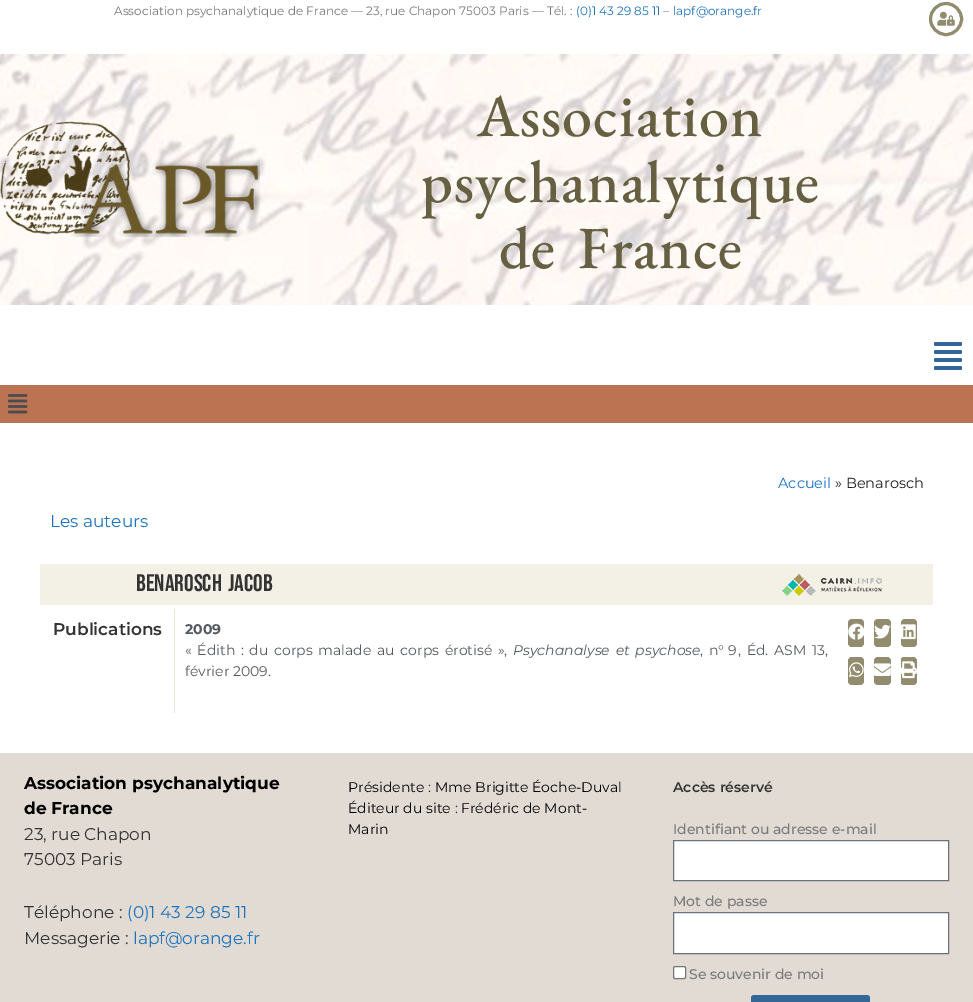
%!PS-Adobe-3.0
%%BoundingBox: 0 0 973 1002
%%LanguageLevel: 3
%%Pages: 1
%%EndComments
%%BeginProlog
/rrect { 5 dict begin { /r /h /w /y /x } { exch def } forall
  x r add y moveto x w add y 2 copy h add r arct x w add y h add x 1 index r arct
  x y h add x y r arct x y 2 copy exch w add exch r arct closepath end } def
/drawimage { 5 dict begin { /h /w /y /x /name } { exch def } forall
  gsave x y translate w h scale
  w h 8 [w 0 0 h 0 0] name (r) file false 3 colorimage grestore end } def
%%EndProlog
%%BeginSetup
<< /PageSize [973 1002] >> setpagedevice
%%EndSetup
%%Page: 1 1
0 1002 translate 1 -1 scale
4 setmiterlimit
1 setgray
0 0 973 1002 rectfill
0.573 0.549 0.435 setrgbcolor
3 setlinewidth
newpath 946 19 15.5 0 360 arc closepath stroke
(images/1.raw) 937 11 18 15 drawimage
(images/2.raw) 0 54 973 251 drawimage
(images/3.raw) 0 121 260 116 drawimage
(images/4.raw) 934 342 28 28 drawimage
0.733 0.451 0.318 setrgbcolor
0 385 973 38 rectfill
(images/5.raw) 8 394 20 20 drawimage
0.953 0.945 0.902 setrgbcolor
40 564 893 41 rectfill
(images/6.raw) 782 574 100 22 drawimage
0.91 0.902 0.863 setrgbcolor
174 609 1 104 rectfill
0.573 0.549 0.435 setrgbcolor
848 619 16 28 4 rrect fill
(images/7.raw) 848 623 16 17 drawimage
874 619 17 28 4 rrect fill
(images/8.raw) 874 624 17 15 drawimage
901 619 16 28 4 rrect fill
(images/9.raw) 901 624 15 16 drawimage
848 657 16 28 4 rrect fill
(images/10.raw) 849 662 15 15 drawimage
874 657 17 28 4 rrect fill
(images/11.raw) 874 663 17 13 drawimage
gsave
901 657 16 28 4 rrect clip newpath
900 657 17 28 4 rrect fill
grestore
(images/12.raw) 901 661 16 18 drawimage
0.882 0.859 0.827 setrgbcolor
0 753 973 249 rectfill
1 setgray
newpath 673.5 840.5 moveto 948.5 840.5 lineto 948.5 880.5 lineto 673.5 880.5 lineto closepath gsave fill grestore
0.412 0.447 0.49 setrgbcolor
1 setlinewidth
stroke
1 setgray
newpath 673.5 912.5 moveto 948.5 912.5 lineto 948.5 953.5 lineto 673.5 953.5 lineto closepath gsave fill grestore
0.412 0.447 0.49 setrgbcolor
stroke
1 setgray
673.5 966.5 12 12 1.5 rrect gsave fill grestore
0.463 setgray
stroke
0.2 0.4 0.6 setrgbcolor
751 995 119 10 3 rrect fill
/Montserrat-Regular [12 0 0 -12 0 0] selectfont
0.478 setgray
114 15 moveto (Association psychanalytique de France — 23, rue Chapon 75003 Paris — Tél. :) show
0.118 0.451 0.745 setrgbcolor
576 15 moveto (\(0\)1 43 29 85 11) show
0.478 setgray
663 15 moveto (–) show
0.118 0.451 0.745 setrgbcolor
673 15 moveto (lapf@orange.fr) show
/EBGaramond-Medium [60 0 0 -60 0 0] selectfont
0.4 0.373 0.255 setrgbcolor
477 136 moveto 1 0 (Association) ashow
421 202 moveto 1 0 (psychanalytique) ashow
499 268 moveto 8 0 32 1 0 (de France) awidthshow
/Montserrat-Regular [14.5 0 0 -14.5 0 0] selectfont
0.118 0.451 0.745 setrgbcolor
778 488 moveto (Accueil) show
0.133 setgray
835 488 moveto (» Benarosch) show
/Montserrat-Regular [17 0 0 -17 0 0] selectfont
0.118 0.451 0.745 setrgbcolor
50 527 moveto (Les auteurs) show
/BebasNeue-Regular [24 0 0 -24 0 0] selectfont
0.2 setgray
136 591 moveto (Benarosch) show
228 591 moveto (Jacob) show
/Montserrat-SemiBold [17 0 0 -17 0 0] selectfont
53 635 moveto (Publications) show
/Montserrat-Bold [14 0 0 -14 0 0] selectfont
0.329 0.349 0.373 setrgbcolor
185 634 moveto (2009) show
/Montserrat-Regular [14 0 0 -14 0 0] selectfont
185 655 moveto 2 0 32 (« Édith : du corps malade au corps érotisé »,) widthshow
/Montserrat-Italic [14 0 0 -14 0 0] selectfont
513 655 moveto 2 0 32 (Psychanalyse et psychose) widthshow
/Montserrat-Regular [14 0 0 -14 0 0] selectfont
700 655 moveto (,) show
709 655 moveto (n° 9) show
738 655 moveto 2 0 32 (, Éd. ASM 13,) widthshow
185 676 moveto (février 2009.) show
/Montserrat-Bold [17 0 0 -17 0 0] selectfont
0 setgray
24 789 moveto (Association psychanalytique) show
24 814 moveto (de France) show
/Montserrat-Regular [17 0 0 -17 0 0] selectfont
0.2 setgray
24 840 moveto (23, rue Chapon) show
24 865 moveto (75003 Paris) show
24 918 moveto (Téléphone :) show
0.118 0.451 0.745 setrgbcolor
127 918 moveto (\(0\)1 43 29 85 11) show
0.2 setgray
24 944 moveto (Messagerie :) show
0.118 0.451 0.745 setrgbcolor
133 944 moveto (lapf@orange.fr) show
/Montserrat-Regular [14 0 0 -14 0 0] selectfont
0 setgray
348 792 moveto (Présidente) show
0.2 setgray
428 792 moveto (:) show
0 setgray
435 792 moveto (Mme Brigitte Éoche-Duval) show
348 813 moveto (Éditeur du site) show
0.2 setgray
455 813 moveto (:) show
0 setgray
461 813 moveto (Frédéric de Mont-) show
348 834 moveto (Marin) show
/Montserrat-SemiBold [14 0 0 -14 0 0] selectfont
0.2 setgray
673 792 moveto (Accès réservé) show
/Montserrat-Medium [14 0 0 -14 0 0] selectfont
0.478 setgray
673 834 moveto (Identifiant ou adresse e-mail) show
673 906 moveto (Mot de passe) show
689 979 moveto (Se souvenir de moi) show
showpage
%%EOF
